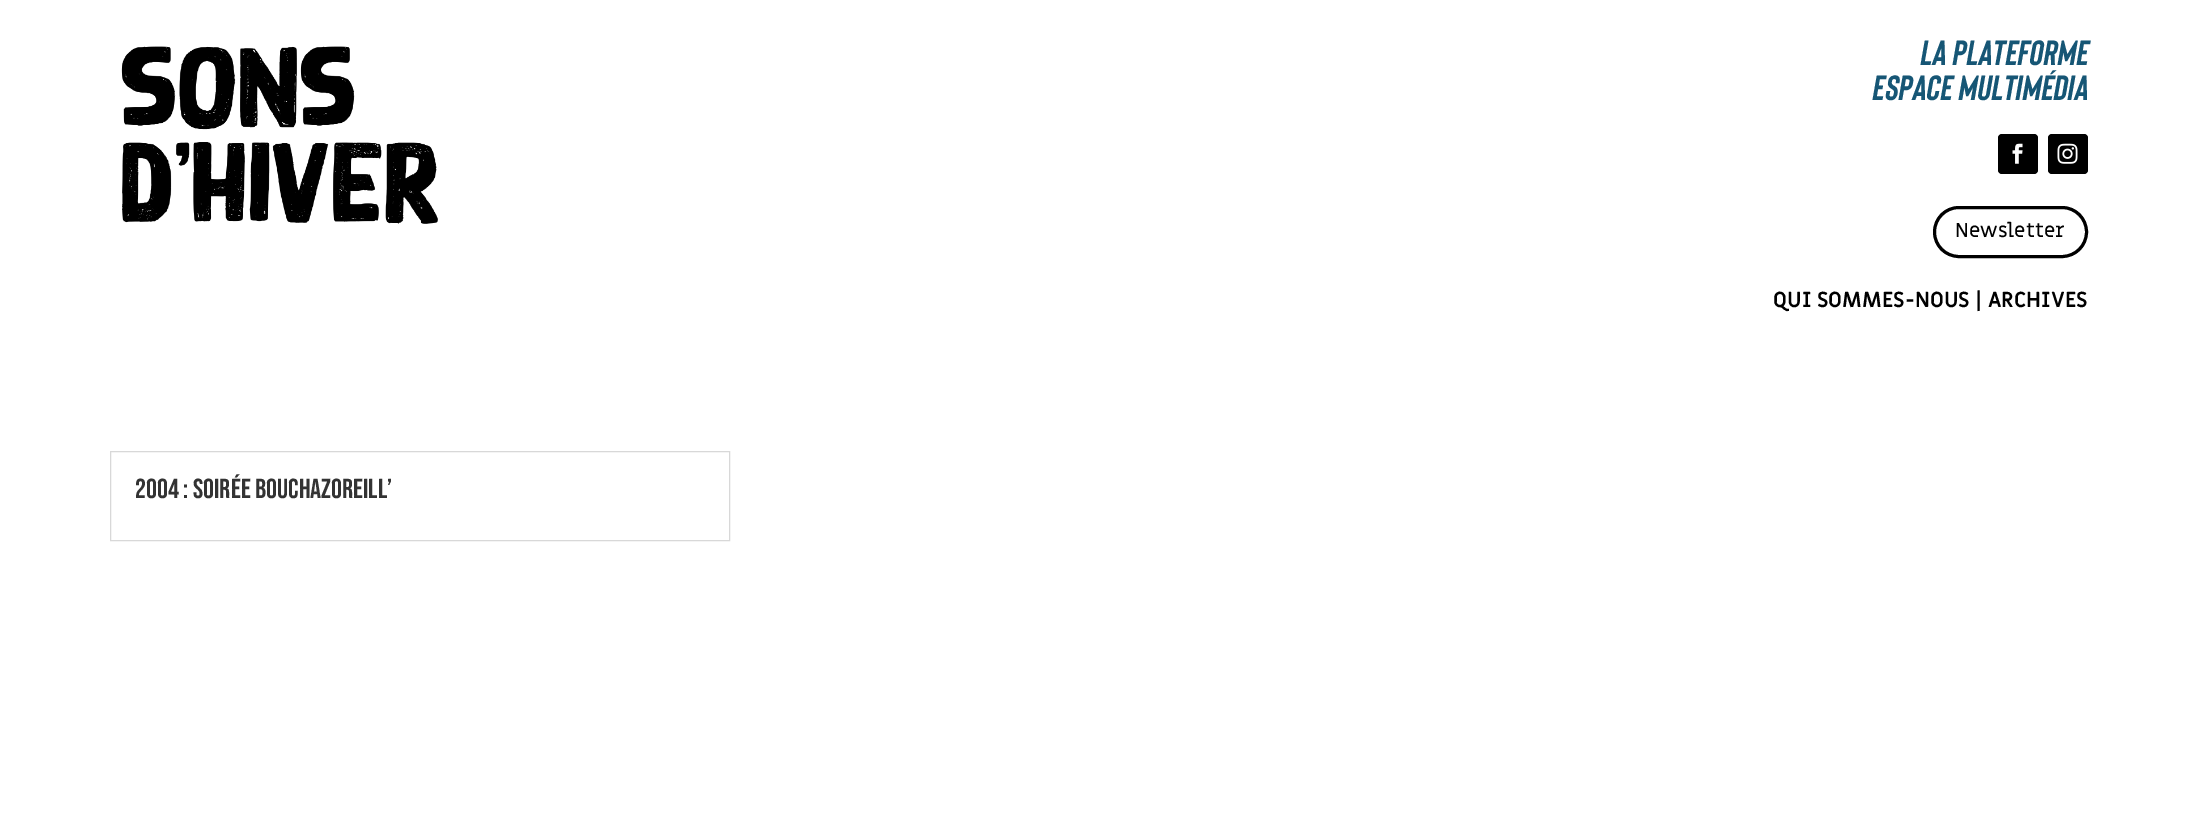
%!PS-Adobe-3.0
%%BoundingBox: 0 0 2197 837
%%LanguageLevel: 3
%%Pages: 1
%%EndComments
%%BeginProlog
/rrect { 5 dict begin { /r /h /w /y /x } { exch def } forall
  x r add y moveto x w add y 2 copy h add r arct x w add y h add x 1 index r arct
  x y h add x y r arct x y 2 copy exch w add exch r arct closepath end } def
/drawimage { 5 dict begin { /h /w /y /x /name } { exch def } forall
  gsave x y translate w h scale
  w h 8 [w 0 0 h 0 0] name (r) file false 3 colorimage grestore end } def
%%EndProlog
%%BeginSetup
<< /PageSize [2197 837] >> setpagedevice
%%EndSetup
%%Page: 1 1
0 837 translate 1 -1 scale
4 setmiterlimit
1 setgray
0 0 2197 837 rectfill
(images/1.raw) 121 46 317 178 drawimage
0 setgray
1998 134 40 40 4 rrect fill
(images/2.raw) 2012 143 11 21 drawimage
2048 134 40 40 4 rrect fill
(images/3.raw) 2057 143 21 21 drawimage
3 setlinewidth
1934.5 207.5 152 49 24.5 rrect stroke
0.847 setgray
1 setlinewidth
110.5 451.5 619 89 rectstroke
/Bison-BoldItalic [35 0 0 -35 0 0] selectfont
0.086 0.337 0.459 setrgbcolor
1919 65 moveto (La Plateforme) show
1871 100 moveto (espace multimédia) show
/MiriamLibre-Medium [20 0 0 -20 0 0] selectfont
0 setgray
1955 237 moveto (Newsletter) show
/MiriamLibre-Bold [21.25 0 0 -21.25 0 0] selectfont
1773 307 moveto (QUI SOMMES-NOUS | ARCHIVES) show
/BebasNeue-Regular [27.5 0 0 -27.5 0 0] selectfont
0.2 setgray
135 498 moveto (2004 : SOIRÉE BOUCHAZOREILL’) show
showpage
%%EOF
